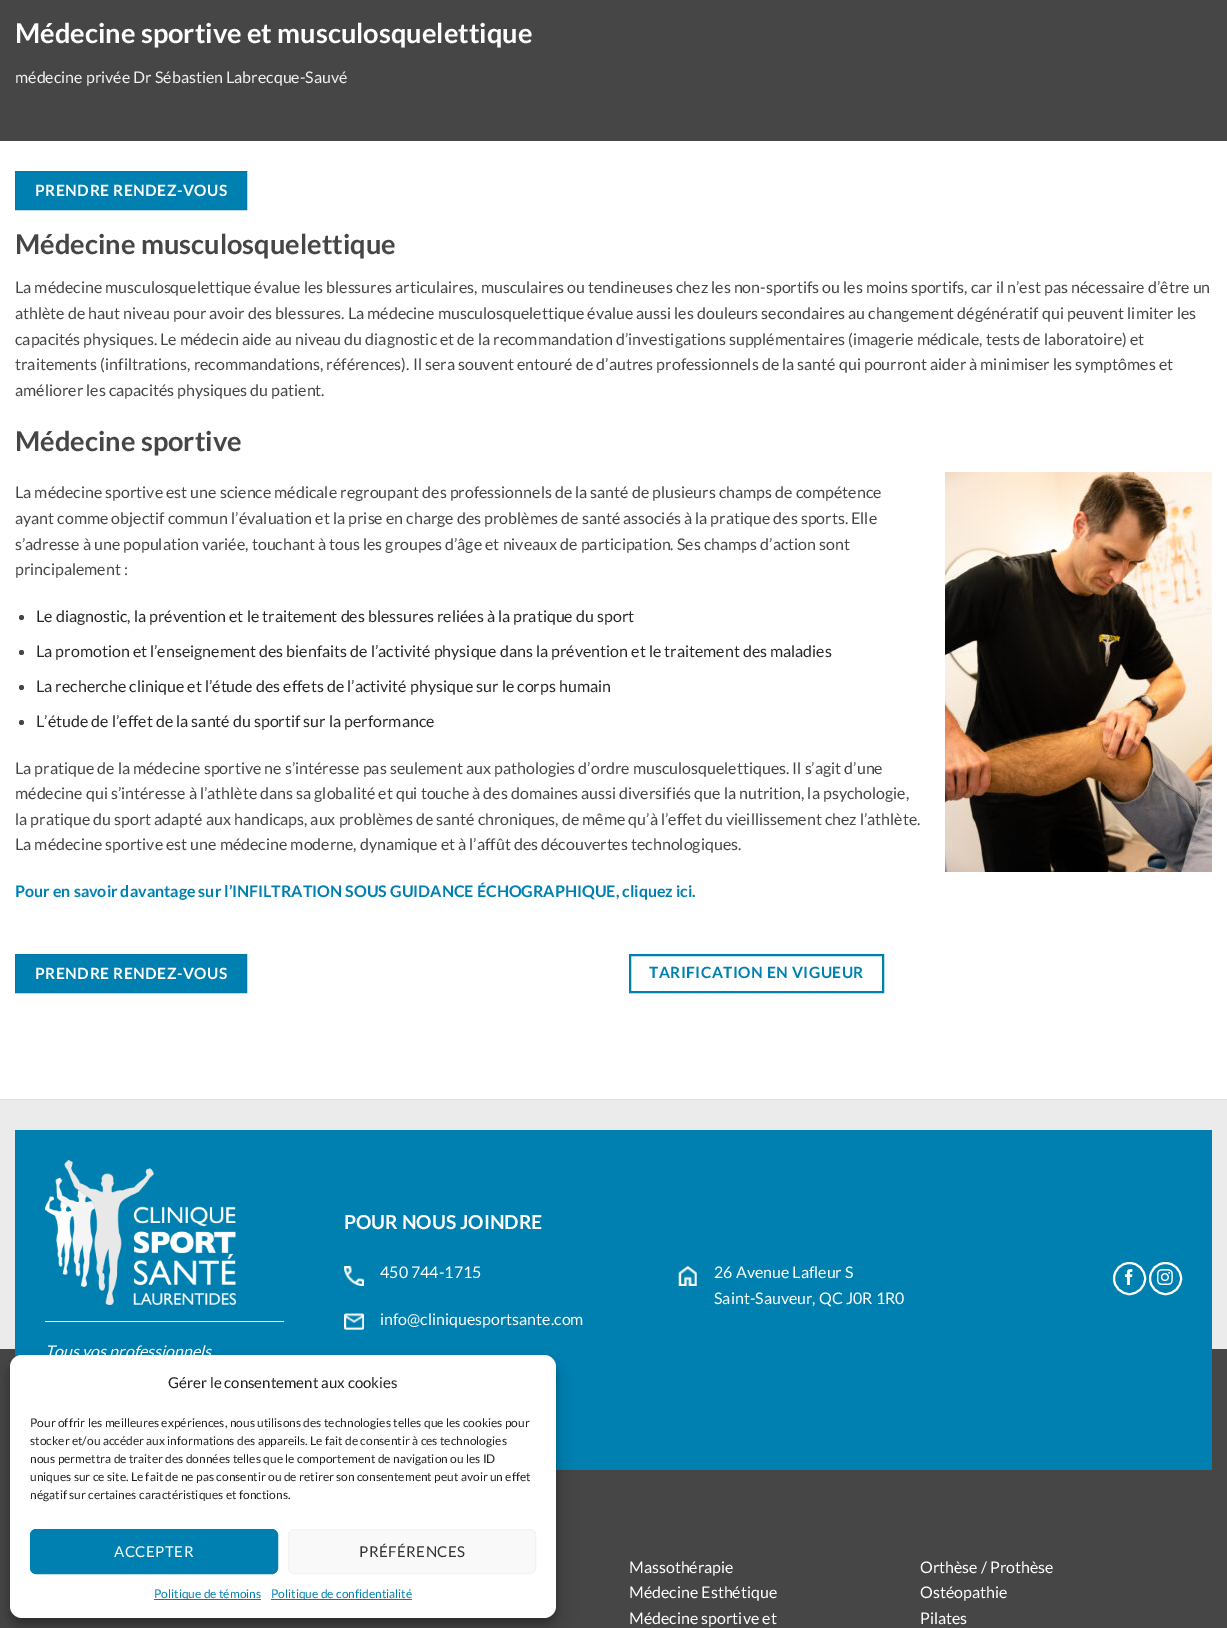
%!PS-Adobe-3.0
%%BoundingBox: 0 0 1227 1628
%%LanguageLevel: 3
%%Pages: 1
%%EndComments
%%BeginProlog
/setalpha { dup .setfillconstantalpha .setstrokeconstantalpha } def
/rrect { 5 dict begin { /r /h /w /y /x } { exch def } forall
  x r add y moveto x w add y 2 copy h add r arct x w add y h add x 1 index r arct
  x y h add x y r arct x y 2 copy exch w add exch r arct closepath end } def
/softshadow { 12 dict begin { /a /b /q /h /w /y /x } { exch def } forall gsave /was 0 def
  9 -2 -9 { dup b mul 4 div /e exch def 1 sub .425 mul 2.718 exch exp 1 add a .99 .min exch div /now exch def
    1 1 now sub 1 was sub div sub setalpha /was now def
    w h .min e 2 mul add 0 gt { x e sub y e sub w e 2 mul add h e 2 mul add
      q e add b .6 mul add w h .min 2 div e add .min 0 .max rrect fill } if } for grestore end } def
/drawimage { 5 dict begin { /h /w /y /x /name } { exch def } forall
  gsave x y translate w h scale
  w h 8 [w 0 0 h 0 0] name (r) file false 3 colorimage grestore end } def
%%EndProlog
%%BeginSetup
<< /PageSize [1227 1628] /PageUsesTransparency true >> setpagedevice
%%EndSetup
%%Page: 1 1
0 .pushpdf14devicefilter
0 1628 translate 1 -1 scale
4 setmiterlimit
1 setgray
0 0 1227 1628 rectfill
0.275 setgray
0 0 1227 141 rectfill
0 0.502 0.694 setrgbcolor
newpath 15.5 171.5 moveto 246.5 171.5 lineto 246.5 209.5 lineto 15.5 209.5 lineto closepath gsave fill grestore
0 0.478 0.659 setrgbcolor
stroke
(images/1.raw) 945 472 267 400 drawimage
0.275 setgray
newpath 21.5 617.5 2.5 0 360 arc closepath fill
newpath 21.5 652.5 2.5 0 360 arc closepath fill
newpath 21.5 687.5 2.5 0 360 arc closepath fill
newpath 21.5 722.5 2.5 0 360 arc closepath fill
0 0.502 0.694 setrgbcolor
newpath 15.5 954.5 moveto 246.5 954.5 lineto 246.5 992.5 lineto 15.5 992.5 lineto closepath gsave fill grestore
0 0.478 0.659 setrgbcolor
stroke
0 0.502 0.694 setrgbcolor
2 setlinewidth
630 955 253 37 rectstroke
0.275 setgray
0 1349 1227 279 rectfill
0.922 setgray
0 1100 1227 249 rectfill
0.875 setgray
0 1099 1227 1 rectfill
0 0.502 0.694 setrgbcolor
15 1130 1197 340 rectfill
(images/2.raw) 344 1266 20 20 drawimage
(images/3.raw) 344 1313 20 17 drawimage
(images/4.raw) 678 1266 19 20 drawimage
1 setgray
newpath 1129.5 1278.5 15.5 0 360 arc closepath stroke
(images/5.raw) 1124 1269 9 16 drawimage
newpath 1165.5 1278.5 15.5 0 360 arc closepath stroke
(images/6.raw) 1157 1269 16 16 drawimage
(images/7.raw) 45 1160 191 145 drawimage
45 1321 239 1 rectfill
0 setgray
10 1361 546 263 12 3 0.23 softshadow
10 1365 546 263 12 10 0.19 softshadow
1 setgray
10 1355 546 263 12 rrect fill
0 0.502 0.694 setrgbcolor
30.5 1529.5 247 44 5.5 rrect gsave fill grestore
1 setlinewidth
stroke
0.976 setgray
288.5 1529.5 247 44 5.5 rrect gsave fill grestore
0.949 setgray
stroke
0 0.502 0.694 setrgbcolor
154 1599 107 1 rectfill
271 1599 141 1 rectfill
/Lato-Bold [27.25 0 0 -27.25 0 0] selectfont
1 setgray
15 43 moveto (Médecine sportive et musculosquelettique) show
/Lato-Regular [16 0 0 -16 0 0] selectfont
0.945 setgray
15 83 moveto (médecine privée Dr Sébastien Labrecque-Sauvé) show
/Lato-Bold [15.5 0 0 -15.5 0 0] selectfont
1 setgray
35 196 moveto 0.5 0 (PRENDRE RENDEZ-VOUS) ashow
/Lato-Bold [27.25 0 0 -27.25 0 0] selectfont
0.275 setgray
15 254 moveto (Médecine musculosquelettique) show
/Lato-Regular [16 0 0 -16 0 0] selectfont
15 293 moveto (La médecine musculosquelettique évalue les blessures articulaires, musculaires ou tendineuses chez les non-sportifs ou les moins sportifs, car il n’est pas nécessaire d’être un) show
15 319 moveto (athlète de haut niveau pour avoir des blessures. La médecine musculosquelettique évalue aussi les douleurs secondaires au changement dégénératif qui peuvent limiter les) show
15 345 moveto (capacités physiques. Le médecin aide au niveau du diagnostic et de la recommandation d’investigations supplémentaires \(imagerie médicale, tests de laboratoire\) et) show
15 370 moveto (traitements \(infiltrations, recommandations, références\). Il sera souvent entouré de d’autres professionnels de la santé qui pourront aider à minimiser les symptômes et) show
15 396 moveto (améliorer les capacités physiques du patient.) show
/Lato-Bold [27.25 0 0 -27.25 0 0] selectfont
15 451 moveto (Médecine sportive) show
/Lato-Regular [16 0 0 -16 0 0] selectfont
15 498 moveto (La médecine sportive est une science médicale regroupant des professionnels de la santé de plusieurs champs de compétence) show
15 524 moveto (ayant comme objectif commun l’évaluation et la prise en charge des problèmes de santé associés à la pratique des sports. Elle) show
15 550 moveto (s’adresse à une population variée, touchant à tous les groupes d’âge et niveaux de participation. Ses champs d’action sont) show
15 575 moveto (principalement :) show
0.157 setgray
36 622 moveto (Le diagnostic, la prévention et le traitement des blessures reliées à la pratique du sport) show
36 657 moveto (La promotion et l’enseignement des bienfaits de l’activité physique dans la prévention et le traitement des maladies) show
36 692 moveto (La recherche clinique et l’étude des effets de l’activité physique sur le corps humain) show
36 727 moveto (L’étude de l’effet de la santé du sportif sur la performance) show
0.275 setgray
15 774 moveto (La pratique de la médecine sportive ne s’intéresse pas seulement aux pathologies d’ordre musculosquelettiques. Il s’agit d’une) show
15 799 moveto (médecine qui s’intéresse à l’athlète dans sa globalité et qui touche à des domaines aussi diversifiés que la nutrition, la psychologie,) show
15 825 moveto (la pratique du sport adapté aux handicaps, aux problèmes de santé chroniques, de même qu’à l’effet du vieillissement chez l’athlète.) show
15 850 moveto (La médecine sportive est une médecine moderne, dynamique et à l’affût des découvertes technologiques.) show
/Lato-Bold [16 0 0 -16 0 0] selectfont
0 0.502 0.694 setrgbcolor
15 897 moveto (Pour en savoir davantage sur l’INFILTRATION SOUS GUIDANCE ÉCHOGRAPHIQUE, cliquez ici.) show
/Lato-Bold [15.5 0 0 -15.5 0 0] selectfont
1 setgray
35 979 moveto 0.5 0 (PRENDRE RENDEZ-VOUS) ashow
0 0.502 0.694 setrgbcolor
649 978 moveto 0.5 0 (TARIFICATION EN VIGUEUR) ashow
/Lato-Bold [19.25 0 0 -19.25 0 0] selectfont
1 setgray
344 1229 moveto (POUR NOUS JOINDRE) show
/Lato-Regular [16 0 0 -16 0 0] selectfont
380 1278 moveto (450 744-1715) show
380 1325 moveto (info@cliniquesportsante.com) show
714 1278 moveto (26 Avenue Lafleur S) show
714 1304 moveto (Saint-Sauveur, QC J0R 1R0) show
/Lato-Italic [16 0 0 -16 0 0] selectfont
45 1357 moveto (Tous vos professionnels) show
/Lato-Regular [16 0 0 -16 0 0] selectfont
629 1573 moveto (Massothérapie) show
629 1598 moveto (Médecine Esthétique) show
629 1624 moveto (Médecine sportive et) show
920 1573 moveto (Orthèse / Prothèse) show
920 1598 moveto (Ostéopathie) show
920 1624 moveto (Pilates) show
/Lato-Regular [15 0 0 -15 0 0] selectfont
0.133 setgray
168 1388 moveto (Gérer le consentement aux cookies) show
/Lato-Regular [12 0 0 -12 0 0] selectfont
30 1427 moveto (Pour offrir les meilleures expériences, nous utilisons des technologies telles que les cookies pour) show
30 1445 moveto (stocker et/ou accéder aux informations des appareils. Le fait de consentir à ces technologies) show
30 1463 moveto (nous permettra de traiter des données telles que le comportement de navigation ou les ID) show
30 1481 moveto (uniques sur ce site. Le fait de ne pas consentir ou de retirer son consentement peut avoir un effet) show
30 1499 moveto (négatif sur certaines caractéristiques et fonctions.) show
/Lato-Regular [15 0 0 -15 0 0] selectfont
1 setgray
114 1557 moveto 0.5 0 (ACCEPTER) ashow
0.2 setgray
359 1557 moveto 0.5 0 (PRÉFÉRENCES) ashow
/Lato-Regular [12 0 0 -12 0 0] selectfont
0 0.502 0.694 setrgbcolor
154 1598 moveto (Politique de témoins) show
271 1598 moveto (Politique de confidentialité) show
.poppdf14devicefilter showpage
%%EOF
